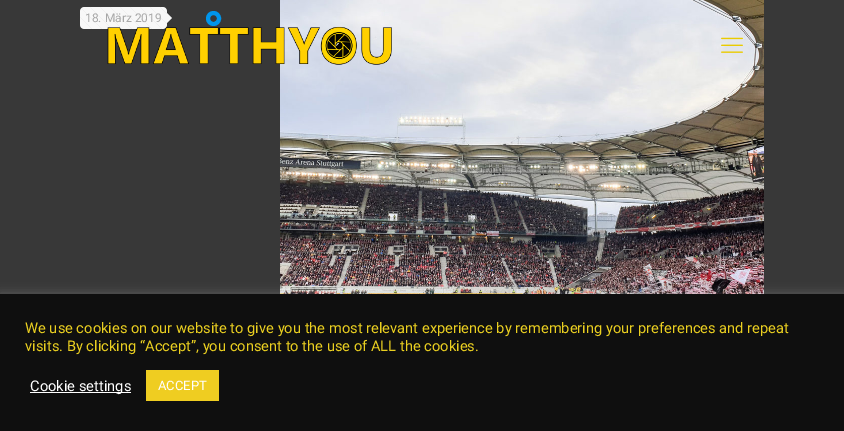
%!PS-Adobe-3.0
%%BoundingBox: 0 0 844 431
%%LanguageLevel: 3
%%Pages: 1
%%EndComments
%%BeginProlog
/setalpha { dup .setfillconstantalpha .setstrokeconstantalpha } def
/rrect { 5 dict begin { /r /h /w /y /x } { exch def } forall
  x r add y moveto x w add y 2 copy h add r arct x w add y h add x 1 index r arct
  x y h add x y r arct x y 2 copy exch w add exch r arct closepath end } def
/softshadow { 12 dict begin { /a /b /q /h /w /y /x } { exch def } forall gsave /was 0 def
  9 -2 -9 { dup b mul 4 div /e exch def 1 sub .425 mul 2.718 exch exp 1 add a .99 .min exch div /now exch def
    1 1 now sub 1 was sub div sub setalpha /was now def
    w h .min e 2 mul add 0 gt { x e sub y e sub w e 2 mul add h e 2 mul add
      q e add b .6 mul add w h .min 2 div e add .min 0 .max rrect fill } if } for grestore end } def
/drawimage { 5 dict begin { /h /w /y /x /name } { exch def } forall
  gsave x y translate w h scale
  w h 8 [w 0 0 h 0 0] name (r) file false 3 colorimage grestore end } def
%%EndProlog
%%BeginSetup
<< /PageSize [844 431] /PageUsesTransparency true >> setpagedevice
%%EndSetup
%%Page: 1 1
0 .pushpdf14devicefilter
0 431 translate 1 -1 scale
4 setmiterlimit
0.22 setgray
0 0 844 431 rectfill
0.973 setgray
80 7 87 22 4 rrect fill
(images/1.raw) 80 7 87 22 drawimage
newpath 167 23 moveto 167 13 lineto 172 18 lineto closepath fill
0 0.584 0.922 setrgbcolor
4 setlinewidth
newpath 213.5 18.5 5.5 0 360 arc closepath stroke
(images/2.raw) 280 0 484 294 drawimage
(images/3.raw) 107 26 285 39 drawimage
(images/4.raw) 721 37 22 16 drawimage
0.675 0.671 0.671 setrgbcolor
0 293 844 137 0 5 0.3 softshadow
0.059 setgray
0 294 844 137 rectfill
1 setgray
30 392 101 1 rectfill
0.937 0.804 0.129 setrgbcolor
146 370 73 31 rectfill
/Roboto-Regular [12 0 0 -12 0 0] selectfont
0.659 setgray
85 22 moveto (18. März 2019) show
/Roboto-Regular [14.67 0 0 -14.67 0 0] selectfont
0.918 0.812 0.125 setrgbcolor
25 333 moveto (We use cookies on our website to give you the most relevant experience by remembering your preferences and repeat) show
25 351 moveto (visits. By clicking “Accept”, you consent to the use of ALL the cookies.) show
1 setgray
30 391 moveto (Cookie settings) show
/Roboto-Regular [13 0 0 -13 0 0] selectfont
158 390 moveto (ACCEPT) show
.poppdf14devicefilter showpage
%%EOF
